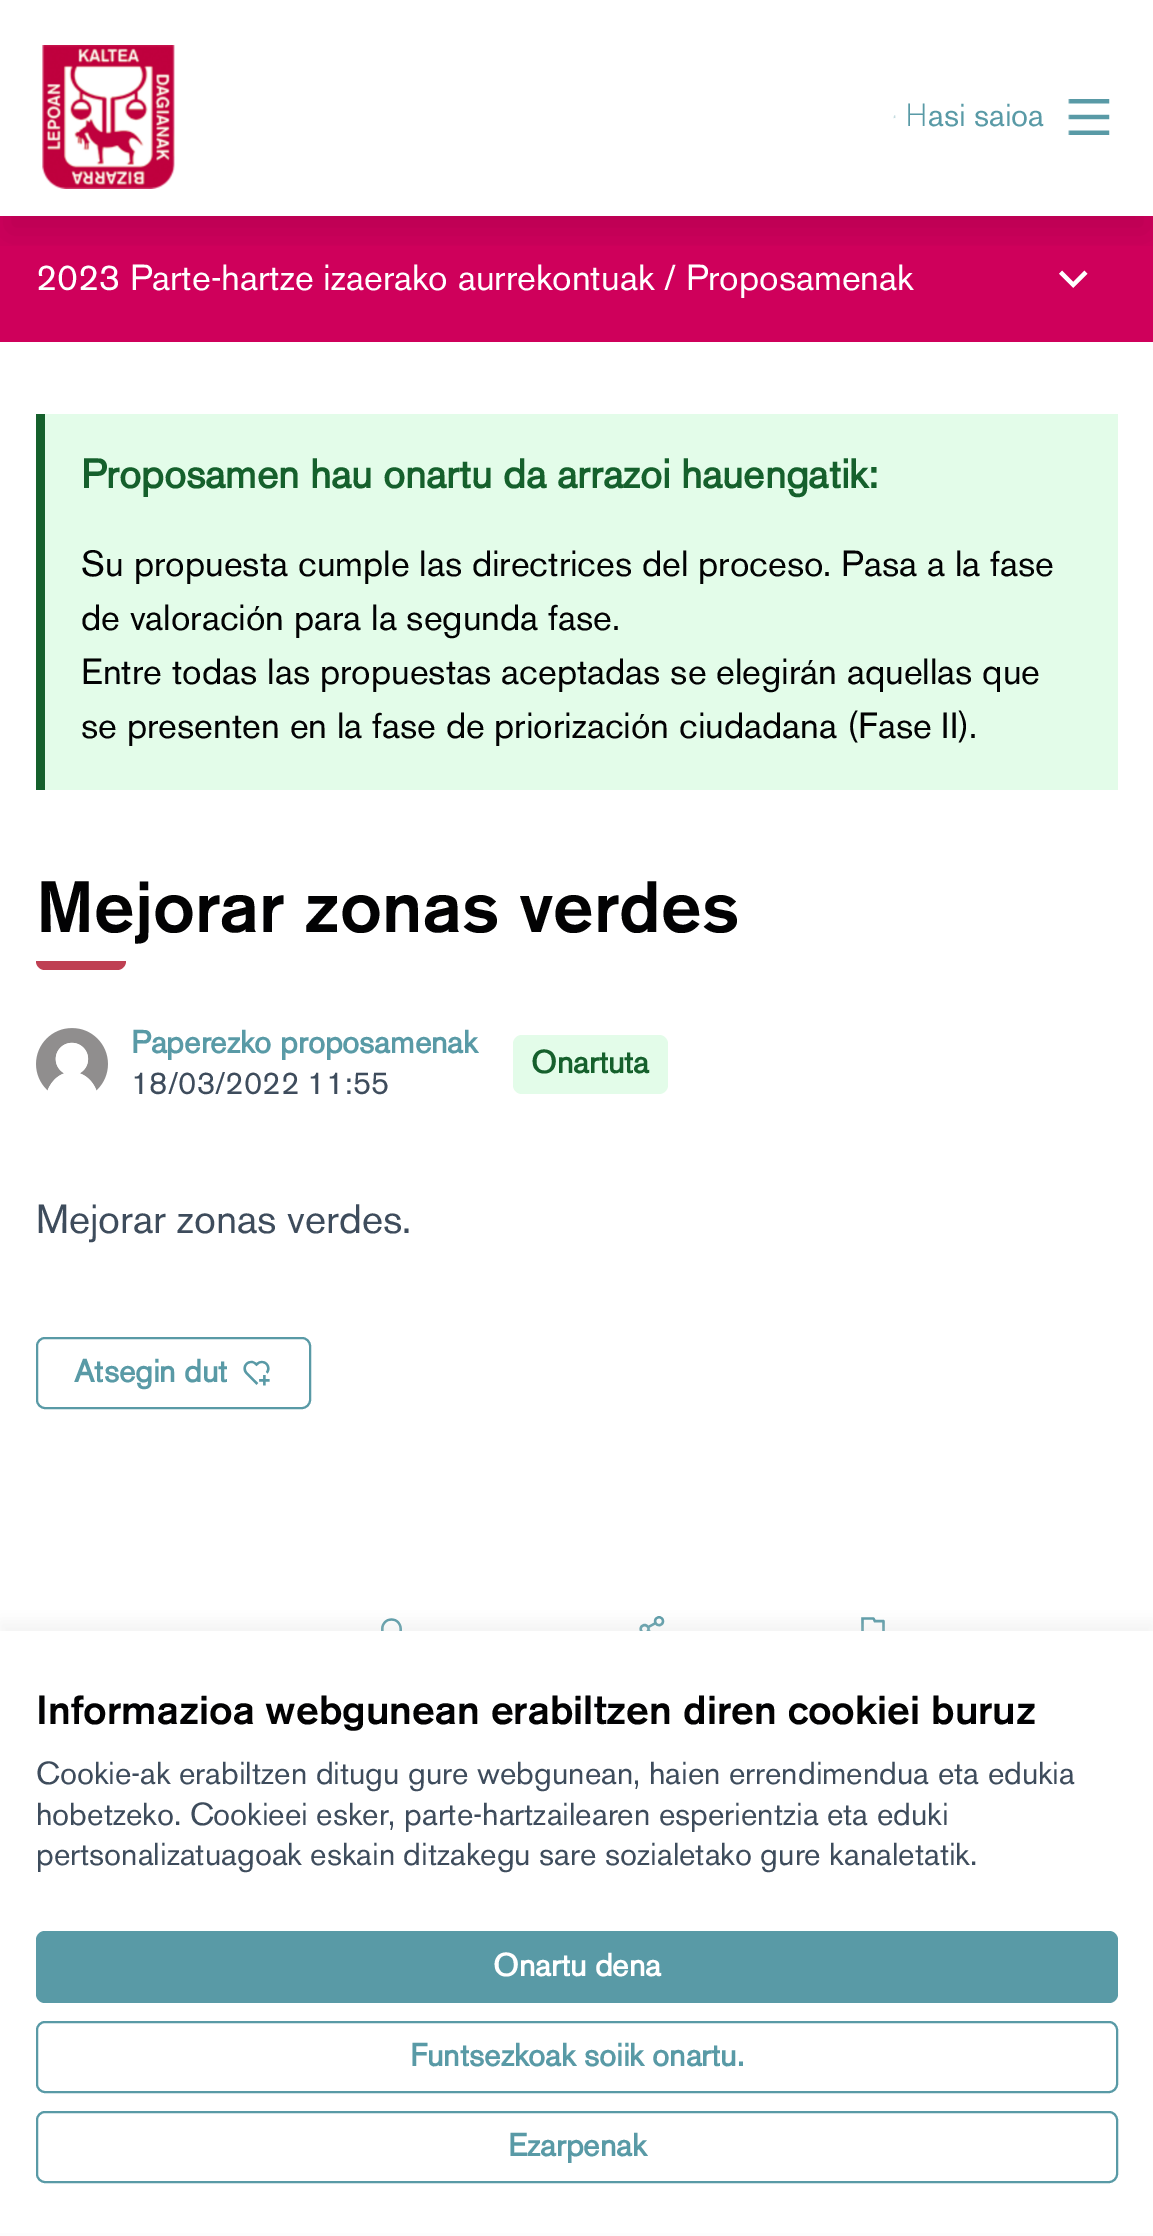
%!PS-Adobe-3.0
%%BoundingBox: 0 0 1153 2236
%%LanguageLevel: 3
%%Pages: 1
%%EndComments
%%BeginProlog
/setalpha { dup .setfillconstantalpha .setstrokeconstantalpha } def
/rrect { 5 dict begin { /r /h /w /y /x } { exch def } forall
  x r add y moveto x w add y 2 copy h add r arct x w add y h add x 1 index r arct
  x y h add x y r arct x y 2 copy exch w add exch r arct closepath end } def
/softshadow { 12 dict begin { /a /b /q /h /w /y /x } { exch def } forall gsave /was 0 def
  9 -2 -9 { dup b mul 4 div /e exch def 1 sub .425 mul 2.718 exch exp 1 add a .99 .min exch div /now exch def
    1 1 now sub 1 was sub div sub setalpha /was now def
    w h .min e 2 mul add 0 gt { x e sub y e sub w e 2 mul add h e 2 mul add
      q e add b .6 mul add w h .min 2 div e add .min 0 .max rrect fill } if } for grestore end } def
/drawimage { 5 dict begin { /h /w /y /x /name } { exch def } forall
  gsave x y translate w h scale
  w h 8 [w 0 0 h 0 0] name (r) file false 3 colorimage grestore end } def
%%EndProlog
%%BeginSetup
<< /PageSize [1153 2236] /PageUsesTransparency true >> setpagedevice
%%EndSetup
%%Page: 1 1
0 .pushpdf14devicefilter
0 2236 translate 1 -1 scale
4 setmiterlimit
1 setgray
0 0 1153 2236 rectfill
0.812 0 0.357 setrgbcolor
0 216 1153 126 rectfill
(images/4.raw) 1059 270 29 18 drawimage
gsave
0 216 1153 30 rectclip
0 setgray
7 29 1141 203 0 17 0.1 softshadow
grestore
(images/1.raw) 42 45 133 144 drawimage
(images/2.raw) 893 115 3 4 drawimage
(images/3.raw) 1068 99 42 36 drawimage
0.89 0.988 0.914 setrgbcolor
45 414 1073 376 rectfill
0.082 0.376 0.173 setrgbcolor
36 414 9 376 rectfill
0.749 0.251 0.325 setrgbcolor
newpath 36 961 moveto 126 961 lineto 126 966 122 970 117 970 curveto 45 970 lineto 40 970 36 966 36 961 curveto closepath fill
(images/5.raw) 36 1028 72 63 drawimage
0.89 0.988 0.914 setrgbcolor
513 1035 155 59 9 rrect fill
0.349 0.604 0.651 setrgbcolor
2 setlinewidth
37 1338 273 70 8 rrect stroke
(images/6.raw) 243 1360 27 26 drawimage
(images/7.raw) 381 1618 21 13 drawimage
(images/8.raw) 639 1616 26 15 drawimage
(images/9.raw) 861 1617 24 14 drawimage
0.827 setgray
0 1622 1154 606 0 7 0.25 softshadow
1 setgray
0 1631 1153 602 rectfill
0.349 0.604 0.651 setrgbcolor
36 1931 1082 72 9 rrect fill
37 2022 1080 70 8 rrect stroke
37 2112 1080 70 8 rrect stroke
/NotoSans-Light [31.5 0 0 -31.5 0 0] selectfont
905 126 moveto (H) show
/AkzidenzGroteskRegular-Regular [31.5 0 0 -31.5 0 0] selectfont
928 126 moveto (asi saioa) show
/AkzidenzGroteskRegular-Regular [36 0 0 -36 0 0] selectfont
1 setgray
36 290 moveto (2023 Parte-hartze izaerako aurrekontuak / Proposamenak) show
/AkzidenzGroteskRegular-Bold [40.5 0 0 -40.5 0 0] selectfont
0.082 0.376 0.173 setrgbcolor
81 488 moveto (Proposamen hau onartu da arrazoi hauengatik:) show
/AkzidenzGroteskRegular-Regular [36 0 0 -36 0 0] selectfont
0.008 0.008 0.012 setrgbcolor
81 576 moveto (Su propuesta cumple las directrices del proceso. Pasa a la fase) show
81 630 moveto (de valoración para la segunda fase.) show
81 684 moveto (Entre todas las propuestas aceptadas se elegirán aquellas que) show
81 738 moveto (se presenten en la fase de priorización ciudadana \(Fase II\).) show
/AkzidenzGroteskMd-Regular [72 0 0 -72 0 0] selectfont
36 932 moveto (Mejorar zonas verdes) show
/AkzidenzGroteskRegular-Bold [31.5 0 0 -31.5 0 0] selectfont
0.349 0.604 0.651 setrgbcolor
131 1053 moveto (Paperezko proposamenak) show
/AkzidenzGroteskRegular-Regular [31.5 0 0 -31.5 0 0] selectfont
0.243 0.298 0.361 setrgbcolor
131 1094 moveto (18/03/2022 11:55) show
/AkzidenzGroteskRegular-Bold [31.5 0 0 -31.5 0 0] selectfont
0.082 0.376 0.173 setrgbcolor
531 1073 moveto (Onartuta) show
/AkzidenzGroteskRegular-Regular [40.5 0 0 -40.5 0 0] selectfont
0.243 0.298 0.361 setrgbcolor
36 1233 moveto (Mejorar zonas verdes.) show
/AkzidenzGroteskRegular-Bold [31.5 0 0 -31.5 0 0] selectfont
0.349 0.604 0.651 setrgbcolor
74 1382 moveto (Atsegin dut) show
/AkzidenzGroteskMd-Regular [40.5 0 0 -40.5 0 0] selectfont
0.008 0.008 0.012 setrgbcolor
36 1724 moveto (Informazioa webgunean erabiltzen diren cookiei buruz) show
/AkzidenzGroteskRegular-Regular [31.5 0 0 -31.5 0 0] selectfont
0.243 0.298 0.361 setrgbcolor
36 1784 moveto (Cookie-ak erabiltzen ditugu gure webgunean, haien errendimendua eta edukia) show
36 1825 moveto (hobetzeko. Cookieei esker, parte-hartzailearen esperientzia eta eduki) show
36 1865 moveto (pertsonalizatuagoak eskain ditzakegu sare sozialetako gure kanaletatik.) show
/AkzidenzGroteskRegular-Bold [31.5 0 0 -31.5 0 0] selectfont
1 setgray
493 1976 moveto (Onartu dena) show
0.349 0.604 0.651 setrgbcolor
410 2066 moveto (Funtsezkoak soiik onartu.) show
508 2156 moveto (Ezarpenak) show
.poppdf14devicefilter showpage
%%EOF
